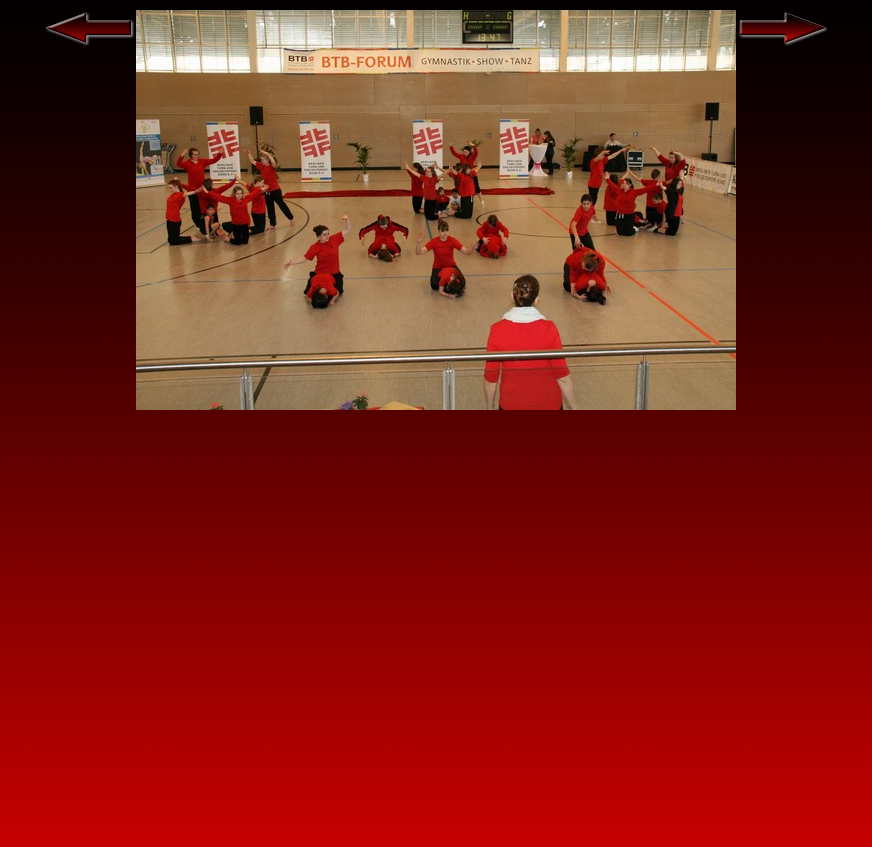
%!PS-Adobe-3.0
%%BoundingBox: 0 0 872 847
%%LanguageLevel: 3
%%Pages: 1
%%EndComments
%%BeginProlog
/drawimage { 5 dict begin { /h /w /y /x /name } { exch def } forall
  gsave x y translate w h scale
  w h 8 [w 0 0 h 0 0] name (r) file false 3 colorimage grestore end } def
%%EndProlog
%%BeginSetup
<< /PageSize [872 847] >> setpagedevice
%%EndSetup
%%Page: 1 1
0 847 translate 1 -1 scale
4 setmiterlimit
1 setgray
0 0 872 847 rectfill
(images/1.raw) 0 0 872 847 drawimage
(images/2.raw) 45 12 89 34 drawimage
(images/3.raw) 136 10 600 400 drawimage
(images/4.raw) 739 12 89 34 drawimage
showpage
%%EOF
